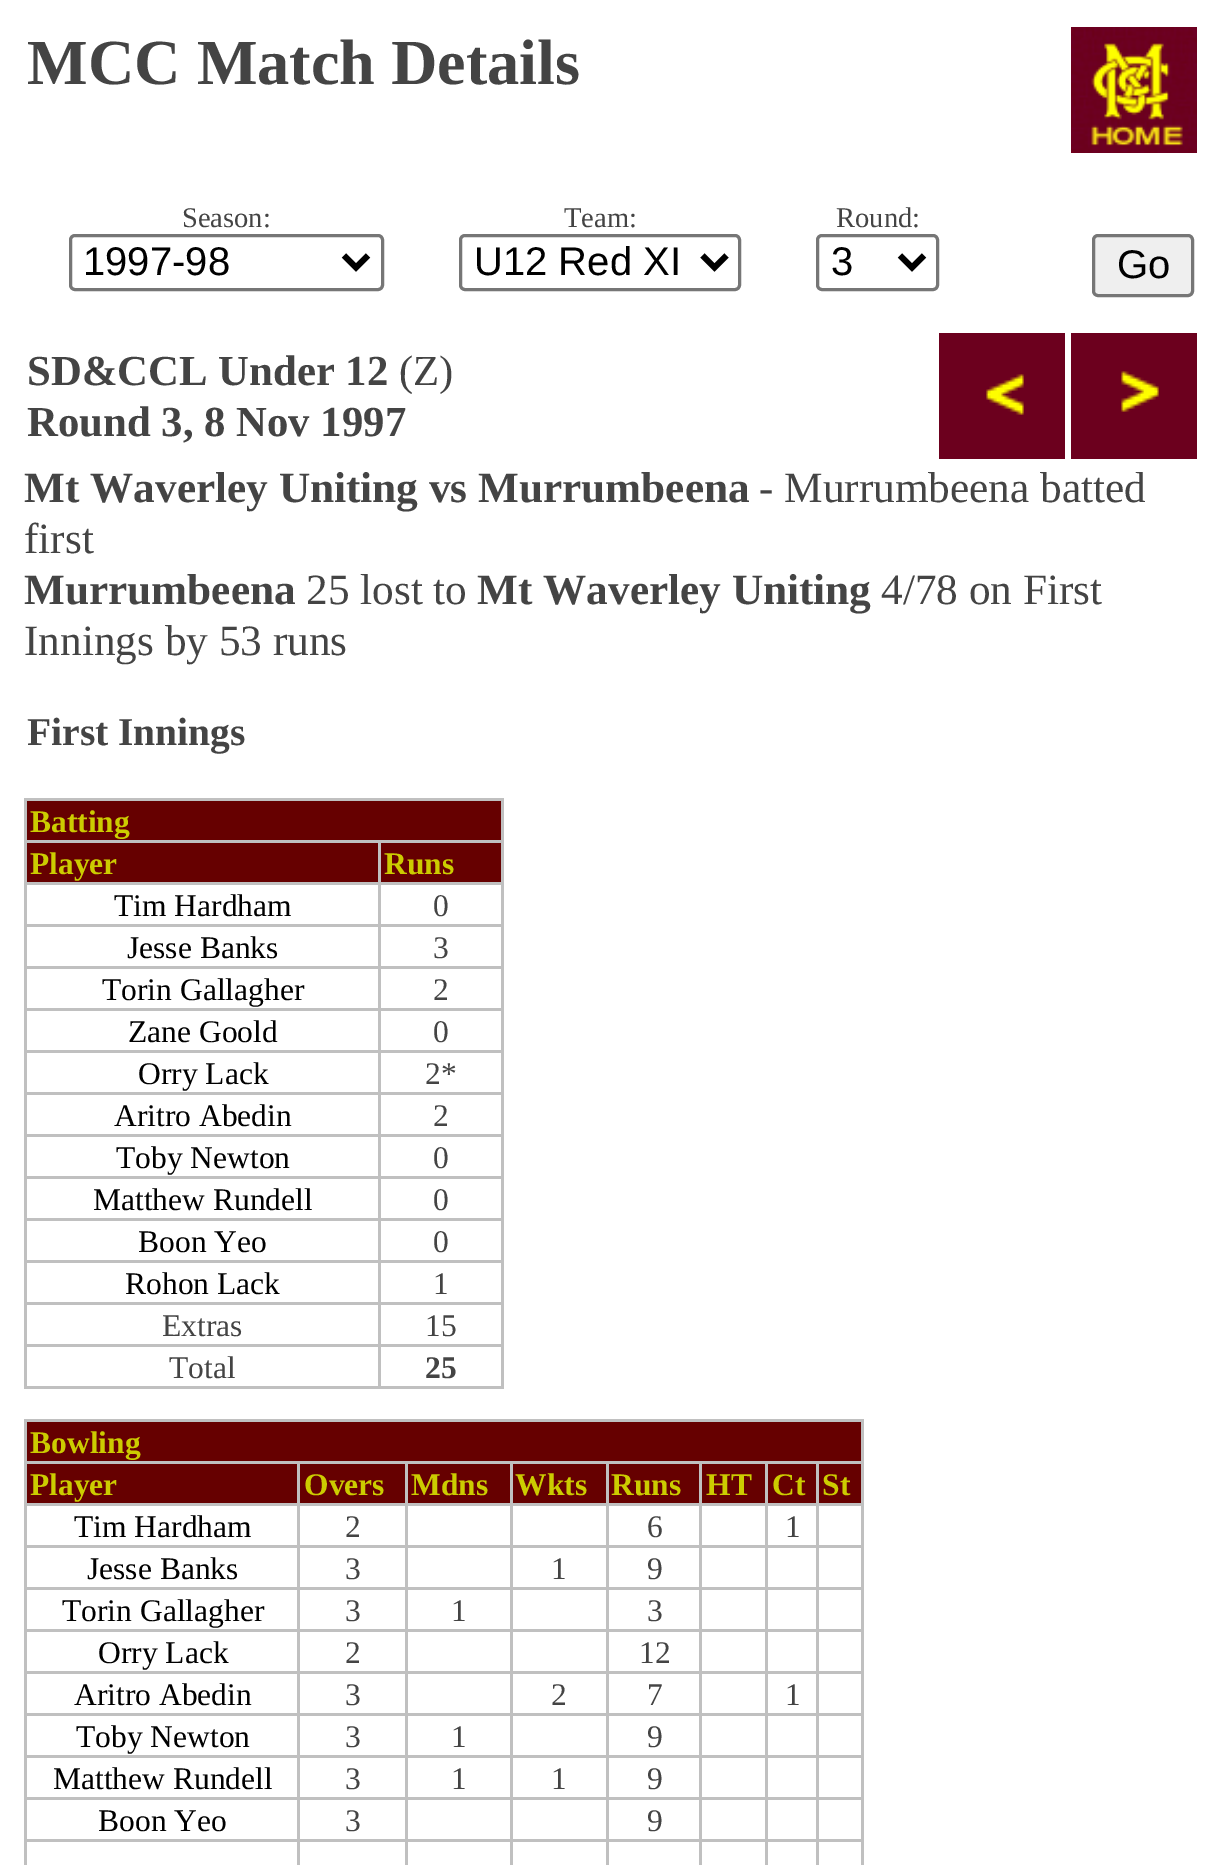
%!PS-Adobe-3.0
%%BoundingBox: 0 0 1223 1865
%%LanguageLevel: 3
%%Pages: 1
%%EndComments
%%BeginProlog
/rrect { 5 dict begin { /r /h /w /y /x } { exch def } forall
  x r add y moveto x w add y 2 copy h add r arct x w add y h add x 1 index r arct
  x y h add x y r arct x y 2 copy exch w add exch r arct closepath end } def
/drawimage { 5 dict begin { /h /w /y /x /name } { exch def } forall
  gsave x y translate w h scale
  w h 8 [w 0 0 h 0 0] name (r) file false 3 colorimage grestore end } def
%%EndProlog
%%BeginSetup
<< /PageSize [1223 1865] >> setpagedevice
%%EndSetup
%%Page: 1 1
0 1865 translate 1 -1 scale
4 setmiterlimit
1 setgray
0 0 1223 1865 rectfill
(images/1.raw) 1071 27 126 126 drawimage
0.463 setgray
3 setlinewidth
70.5 235.5 312 54 4.5 rrect stroke
0 setgray
6 setlinewidth
newpath 344 255.5 moveto 356 267.5 lineto 368 255.5 lineto stroke
0.463 setgray
3 setlinewidth
460.5 235.5 279 54 4.5 rrect stroke
0 setgray
6 setlinewidth
newpath 702.5 255.5 moveto 714.5 267.5 lineto 726.5 255.5 lineto stroke
0.463 setgray
3 setlinewidth
817.5 235.5 120 54 4.5 rrect stroke
0 setgray
6 setlinewidth
newpath 900 255.5 moveto 912 267.5 lineto 924 255.5 lineto stroke
0.937 setgray
1093.5 235.5 99 60 4.5 rrect gsave fill grestore
0.463 setgray
3 setlinewidth
stroke
(images/2.raw) 939 333 126 126 drawimage
(images/3.raw) 1071 333 126 126 drawimage
0.753 setgray
24 798 480 3 rectfill
501 798 3 591 rectfill
24 1386 480 3 rectfill
24 798 3 591 rectfill
0.4 0 0 setrgbcolor
27 801 474 39 rectfill
27 843 351 39 rectfill
0.753 setgray
378 840 126 3 rectfill
378 882 126 3 rectfill
378 924 126 3 rectfill
378 966 126 3 rectfill
378 1008 126 3 rectfill
378 1050 126 3 rectfill
378 1092 126 3 rectfill
378 1134 126 3 rectfill
378 1176 126 3 rectfill
378 1218 126 3 rectfill
378 1260 126 3 rectfill
378 1302 126 3 rectfill
378 1344 126 3 rectfill
378 1344 3 45 rectfill
24 1344 357 3 rectfill
378 1302 3 45 rectfill
24 1302 357 3 rectfill
378 1260 3 45 rectfill
24 1260 357 3 rectfill
378 1218 3 45 rectfill
24 1218 357 3 rectfill
378 1176 3 45 rectfill
24 1176 357 3 rectfill
378 1134 3 45 rectfill
24 1134 357 3 rectfill
378 1092 3 45 rectfill
24 1092 357 3 rectfill
378 1050 3 45 rectfill
24 1050 357 3 rectfill
378 1008 3 45 rectfill
24 1008 357 3 rectfill
378 966 3 45 rectfill
24 966 357 3 rectfill
378 924 3 45 rectfill
24 924 357 3 rectfill
378 882 3 45 rectfill
24 882 357 3 rectfill
378 840 3 45 rectfill
24 840 357 3 rectfill
0.4 0 0 setrgbcolor
381 843 120 39 rectfill
0.753 setgray
24 1419 840 3 rectfill
861 1419 3 446 rectfill
24 1419 3 446 rectfill
0.4 0 0 setrgbcolor
27 1422 834 39 rectfill
27 1464 270 39 rectfill
0.753 setgray
816 1461 48 3 rectfill
816 1503 48 3 rectfill
816 1545 48 3 rectfill
816 1587 48 3 rectfill
816 1629 48 3 rectfill
816 1671 48 3 rectfill
816 1713 48 3 rectfill
816 1755 48 3 rectfill
816 1797 48 3 rectfill
816 1839 48 3 rectfill
816 1839 3 26 rectfill
765 1839 54 3 rectfill
816 1797 3 45 rectfill
765 1797 54 3 rectfill
816 1755 3 45 rectfill
765 1755 54 3 rectfill
816 1713 3 45 rectfill
765 1713 54 3 rectfill
816 1671 3 45 rectfill
765 1671 54 3 rectfill
816 1629 3 45 rectfill
765 1629 54 3 rectfill
816 1587 3 45 rectfill
765 1587 54 3 rectfill
816 1545 3 45 rectfill
765 1545 54 3 rectfill
816 1503 3 45 rectfill
765 1503 54 3 rectfill
816 1461 3 45 rectfill
765 1461 54 3 rectfill
765 1839 3 26 rectfill
699 1839 69 3 rectfill
765 1797 3 45 rectfill
699 1797 69 3 rectfill
765 1755 3 45 rectfill
699 1755 69 3 rectfill
765 1713 3 45 rectfill
699 1713 69 3 rectfill
765 1671 3 45 rectfill
699 1671 69 3 rectfill
765 1629 3 45 rectfill
699 1629 69 3 rectfill
765 1587 3 45 rectfill
699 1587 69 3 rectfill
765 1545 3 45 rectfill
699 1545 69 3 rectfill
765 1503 3 45 rectfill
699 1503 69 3 rectfill
765 1461 3 45 rectfill
699 1461 69 3 rectfill
699 1839 3 26 rectfill
606 1839 96 3 rectfill
699 1797 3 45 rectfill
606 1797 96 3 rectfill
699 1755 3 45 rectfill
606 1755 96 3 rectfill
699 1713 3 45 rectfill
606 1713 96 3 rectfill
699 1671 3 45 rectfill
606 1671 96 3 rectfill
699 1629 3 45 rectfill
606 1629 96 3 rectfill
699 1587 3 45 rectfill
606 1587 96 3 rectfill
699 1545 3 45 rectfill
606 1545 96 3 rectfill
699 1503 3 45 rectfill
606 1503 96 3 rectfill
699 1461 3 45 rectfill
606 1461 96 3 rectfill
606 1839 3 26 rectfill
510 1839 99 3 rectfill
606 1797 3 45 rectfill
510 1797 99 3 rectfill
606 1755 3 45 rectfill
510 1755 99 3 rectfill
606 1713 3 45 rectfill
510 1713 99 3 rectfill
606 1671 3 45 rectfill
510 1671 99 3 rectfill
606 1629 3 45 rectfill
510 1629 99 3 rectfill
606 1587 3 45 rectfill
510 1587 99 3 rectfill
606 1545 3 45 rectfill
510 1545 99 3 rectfill
606 1503 3 45 rectfill
510 1503 99 3 rectfill
606 1461 3 45 rectfill
510 1461 99 3 rectfill
510 1839 3 26 rectfill
405 1839 108 3 rectfill
510 1797 3 45 rectfill
405 1797 108 3 rectfill
510 1755 3 45 rectfill
405 1755 108 3 rectfill
510 1713 3 45 rectfill
405 1713 108 3 rectfill
510 1671 3 45 rectfill
405 1671 108 3 rectfill
510 1629 3 45 rectfill
405 1629 108 3 rectfill
510 1587 3 45 rectfill
405 1587 108 3 rectfill
510 1545 3 45 rectfill
405 1545 108 3 rectfill
510 1503 3 45 rectfill
405 1503 108 3 rectfill
510 1461 3 45 rectfill
405 1461 108 3 rectfill
405 1839 3 26 rectfill
297 1839 111 3 rectfill
405 1797 3 45 rectfill
297 1797 111 3 rectfill
405 1755 3 45 rectfill
297 1755 111 3 rectfill
405 1713 3 45 rectfill
297 1713 111 3 rectfill
405 1671 3 45 rectfill
297 1671 111 3 rectfill
405 1629 3 45 rectfill
297 1629 111 3 rectfill
405 1587 3 45 rectfill
297 1587 111 3 rectfill
405 1545 3 45 rectfill
297 1545 111 3 rectfill
405 1503 3 45 rectfill
297 1503 111 3 rectfill
405 1461 3 45 rectfill
297 1461 111 3 rectfill
297 1839 3 26 rectfill
24 1839 276 3 rectfill
297 1797 3 45 rectfill
24 1797 276 3 rectfill
297 1755 3 45 rectfill
24 1755 276 3 rectfill
297 1713 3 45 rectfill
24 1713 276 3 rectfill
297 1671 3 45 rectfill
24 1671 276 3 rectfill
297 1629 3 45 rectfill
24 1629 276 3 rectfill
297 1587 3 45 rectfill
24 1587 276 3 rectfill
297 1545 3 45 rectfill
24 1545 276 3 rectfill
297 1503 3 45 rectfill
24 1503 276 3 rectfill
297 1461 3 45 rectfill
24 1461 276 3 rectfill
0.4 0 0 setrgbcolor
300 1464 105 39 rectfill
408 1464 102 39 rectfill
513 1464 93 39 rectfill
609 1464 90 39 rectfill
702 1464 63 39 rectfill
768 1464 48 39 rectfill
819 1464 42 39 rectfill
/LiberationSerif-Bold [64.25 0 0 -64.25 0 0] selectfont
0.267 setgray
27 84 moveto (MCC Match Details) show
/LiberationSerif-Regular [28.5 0 0 -28.5 0 0] selectfont
182 227 moveto (Season:) show
/LiberationSans-Regular [40 0 0 -40 0 0] selectfont
0 setgray
83 275 moveto (1997-98) show
/LiberationSerif-Regular [28.5 0 0 -28.5 0 0] selectfont
0.267 setgray
564 227 moveto (Team:) show
/LiberationSans-Regular [40 0 0 -40 0 0] selectfont
0 setgray
474 275 moveto (U12 Red XI) show
/LiberationSerif-Regular [28.5 0 0 -28.5 0 0] selectfont
0.267 setgray
836 227 moveto (Round:) show
/LiberationSans-Regular [40 0 0 -40 0 0] selectfont
0 setgray
831 275 moveto (3) show
1117 278 moveto (Go) show
/LiberationSerif-Bold [42.75 0 0 -42.75 0 0] selectfont
0.267 setgray
27 385 moveto (SD&CCL Under 12) show
/LiberationSerif-Regular [42.75 0 0 -42.75 0 0] selectfont
399 385 moveto (\(Z\)) show
/LiberationSerif-Bold [42.75 0 0 -42.75 0 0] selectfont
27 436 moveto (Round 3, 8 Nov 1997) show
/LiberationSerif-Bold [43.25 0 0 -43.25 0 0] selectfont
24 502 moveto (Mt Waverley Uniting vs Murrumbeena) show
/LiberationSerif-Regular [43.25 0 0 -43.25 0 0] selectfont
759 502 moveto (- Murrumbeena batted) show
24 553 moveto (first) show
/LiberationSerif-Bold [43.25 0 0 -43.25 0 0] selectfont
24 604 moveto (Murrumbeena) show
/LiberationSerif-Regular [43.25 0 0 -43.25 0 0] selectfont
306 604 moveto (25 lost to) show
/LiberationSerif-Bold [43.25 0 0 -43.25 0 0] selectfont
477 604 moveto (Mt Waverley Uniting) show
/LiberationSerif-Regular [43.25 0 0 -43.25 0 0] selectfont
881 604 moveto (4/78 on First) show
24 655 moveto (Innings by 53 runs) show
/LiberationSerif-Bold [39.5 0 0 -39.5 0 0] selectfont
27 745 moveto (First Innings) show
/LiberationSerif-Bold [31.5 0 0 -31.5 0 0] selectfont
0.8 0.8 0 setrgbcolor
30 832 moveto (Batting) show
30 874 moveto (Player) show
384 874 moveto (Runs) show
/LiberationSerif-Regular [31.5 0 0 -31.5 0 0] selectfont
0 setgray
114 916 moveto (Tim Hardham) show
0.267 setgray
433 916 moveto (0) show
0 setgray
127 958 moveto (Jesse Banks) show
0.267 setgray
433 958 moveto (3) show
0 setgray
102 1000 moveto (Torin Gallagher) show
0.267 setgray
433 1000 moveto (2) show
0 setgray
128 1042 moveto (Zane Goold) show
0.267 setgray
433 1042 moveto (0) show
0 setgray
138 1084 moveto (Orry Lack) show
0.267 setgray
425 1084 moveto (2*) show
0 setgray
114 1126 moveto (Aritro Abedin) show
0.267 setgray
433 1126 moveto (2) show
0 setgray
116 1168 moveto (Toby Newton) show
0.267 setgray
433 1168 moveto (0) show
0 setgray
93 1210 moveto (Matthew Rundell) show
0.267 setgray
433 1210 moveto (0) show
0 setgray
138 1252 moveto (Boon Yeo) show
0.267 setgray
433 1252 moveto (0) show
0 setgray
125 1294 moveto (Rohon Lack) show
0.267 setgray
433 1294 moveto (1) show
162 1336 moveto (Extras) show
425 1336 moveto (15) show
169 1378 moveto (Total) show
/LiberationSerif-Bold [31.5 0 0 -31.5 0 0] selectfont
425 1378 moveto (25) show
0.8 0.8 0 setrgbcolor
30 1453 moveto (Bowling) show
30 1495 moveto (Player) show
304 1495 moveto (Overs) show
411 1495 moveto (Mdns) show
515 1495 moveto (Wkts) show
611 1495 moveto (Runs) show
706 1495 moveto (HT) show
772 1495 moveto (Ct) show
822 1495 moveto (St) show
/LiberationSerif-Regular [31.5 0 0 -31.5 0 0] selectfont
0 setgray
74 1537 moveto (Tim Hardham) show
0.267 setgray
345 1537 moveto (2) show
647 1537 moveto (6) show
785 1537 moveto (1) show
0 setgray
87 1579 moveto (Jesse Banks) show
0.267 setgray
345 1579 moveto (3) show
551 1579 moveto (1) show
647 1579 moveto (9) show
0 setgray
62 1621 moveto (Torin Gallagher) show
0.267 setgray
345 1621 moveto (3) show
451 1621 moveto (1) show
647 1621 moveto (3) show
0 setgray
98 1663 moveto (Orry Lack) show
0.267 setgray
345 1663 moveto (2) show
639 1663 moveto (12) show
0 setgray
74 1705 moveto (Aritro Abedin) show
0.267 setgray
345 1705 moveto (3) show
551 1705 moveto (2) show
647 1705 moveto (7) show
785 1705 moveto (1) show
0 setgray
76 1747 moveto (Toby Newton) show
0.267 setgray
345 1747 moveto (3) show
451 1747 moveto (1) show
647 1747 moveto (9) show
0 setgray
53 1789 moveto (Matthew Rundell) show
0.267 setgray
345 1789 moveto (3) show
451 1789 moveto (1) show
551 1789 moveto (1) show
647 1789 moveto (9) show
0 setgray
98 1831 moveto (Boon Yeo) show
0.267 setgray
345 1831 moveto (3) show
647 1831 moveto (9) show
showpage
%%EOF
